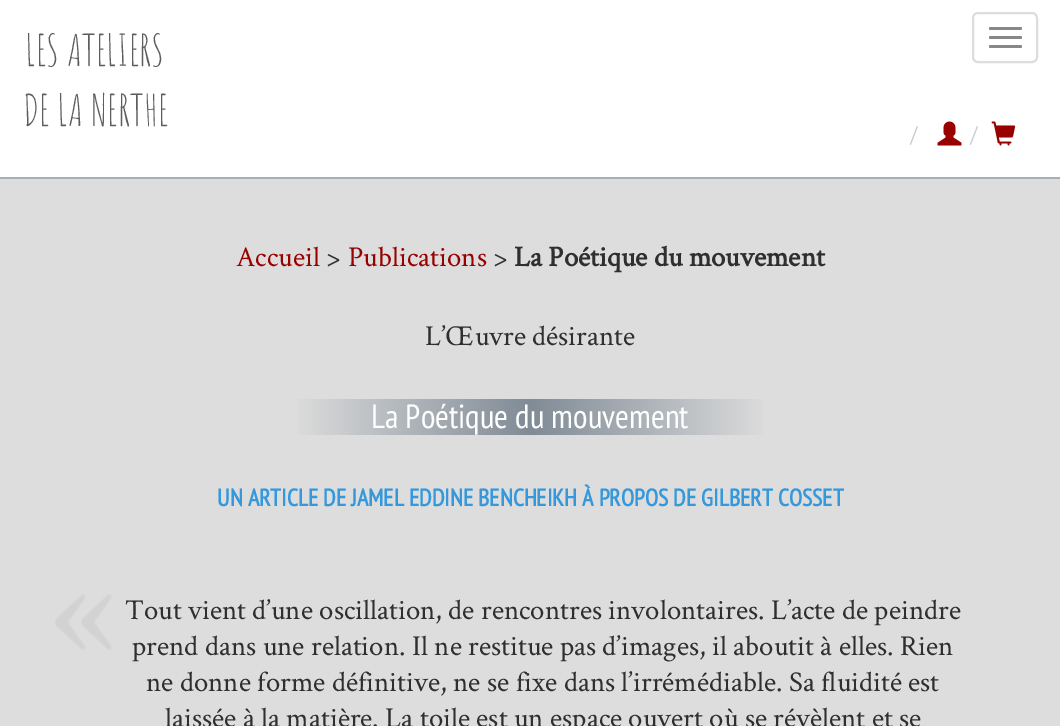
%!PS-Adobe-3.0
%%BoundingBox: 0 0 1060 726
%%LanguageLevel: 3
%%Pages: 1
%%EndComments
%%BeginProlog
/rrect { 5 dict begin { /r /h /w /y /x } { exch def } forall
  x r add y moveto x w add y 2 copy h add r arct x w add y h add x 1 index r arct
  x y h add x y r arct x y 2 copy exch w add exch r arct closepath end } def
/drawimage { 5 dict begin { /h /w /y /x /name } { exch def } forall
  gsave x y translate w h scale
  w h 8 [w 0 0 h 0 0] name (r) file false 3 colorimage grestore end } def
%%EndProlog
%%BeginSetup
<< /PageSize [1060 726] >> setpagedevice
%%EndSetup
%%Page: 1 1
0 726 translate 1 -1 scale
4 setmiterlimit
0.867 setgray
0 0 1060 726 rectfill
1 setgray
0 0 1060 177 rectfill
0.631 0.694 0.729 setrgbcolor
0 177 1060 2 rectfill
0.867 setgray
2 setlinewidth
973 13 64 49 5 rrect stroke
0.533 setgray
989 27 33 3 1.5 rrect fill
989 36 33 3 1.5 rrect fill
989 45 33 3 1.5 rrect fill
(images/1.raw) 937 121 25 25 drawimage
(images/2.raw) 991 121 25 25 drawimage
gsave newpath 298 399 moveto 763 399 lineto 763 435 lineto 298 435 lineto closepath clip newpath
<< /ShadingType 2 /ColorSpace /DeviceRGB /Coords [53 417 1008 417] /Extend [true true] /Function << /FunctionType 3 /Domain [0 1] /Functions [<< /FunctionType 2 /Domain [0 1] /C0 [0.867 0.867 0.867] /C1 [0.867 0.867 0.867] /N 1 >> << /FunctionType 2 /Domain [0 1] /C0 [0.867 0.867 0.867] /C1 [0.502 0.545 0.588] /N 1 >> << /FunctionType 2 /Domain [0 1] /C0 [0.502 0.545 0.588] /C1 [0.867 0.867 0.867] /N 1 >> << /FunctionType 2 /Domain [0 1] /C0 [0.867 0.867 0.867] /C1 [0.867 0.867 0.867] /N 1 >>] /Bounds [0.25 0.5 0.75] /Encode [0 1 0 1 0 1 0 1] >> >> shfill grestore
(images/3.raw) 55 594 57 56 drawimage
/AmaticSC-Regular [43 0 0 -43 0 0] selectfont
0.369 setgray
25 66 moveto (LES ATELIERS) show
23 126 moveto (DE LA NERTHE) show
/CrimsonText-Regular [24 0 0 -24 0 0] selectfont
0.8 setgray
909 144 moveto (/) show
969 144 moveto (/) show
/CrimsonText-Regular [28.8 0 0 -28.8 0 0] selectfont
0.6 0 0 setrgbcolor
236 266 moveto (Accueil) show
0.184 setgray
326 266 moveto (>) show
0.6 0 0 setrgbcolor
348 266 moveto (Publications) show
0.184 setgray
493 266 moveto (>) show
/CrimsonText-Bold [28.8 0 0 -28.8 0 0] selectfont
514 266 moveto (La Poétique du mouvement) show
/CrimsonText-Regular [28.8 0 0 -28.8 0 0] selectfont
425 345 moveto (L’Œuvre désirante) show
/PTSansNarrow-Regular [33.5 0 0 -33.5 0 0] selectfont
0.992 0.996 0.996 setrgbcolor
371 428 moveto (La Poétique du mouvement) show
/PTSansNarrow-Bold [24 0 0 -24 0 0] selectfont
0.204 0.596 0.859 setrgbcolor
217 506 moveto (UN ARTICLE DE JAMEL EDDINE BENCHEIKH À PROPOS DE GILBERT COSSET) show
/CrimsonText-Regular [28.8 0 0 -28.8 0 0] selectfont
0.184 setgray
125 619 moveto (Tout vient d’une oscillation, de rencontres involontaires. L’acte de peindre) show
132 655 moveto (prend dans une relation. Il ne restitue pas d’images, il aboutit à elles. Rien) show
146 691 moveto (ne donne forme définitive, ne se fixe dans l’irrémédiable. Sa fluidité est) show
165 727 moveto (laissée à la matière. La toile est un espace ouvert où se révèlent et se) show
showpage
%%EOF
